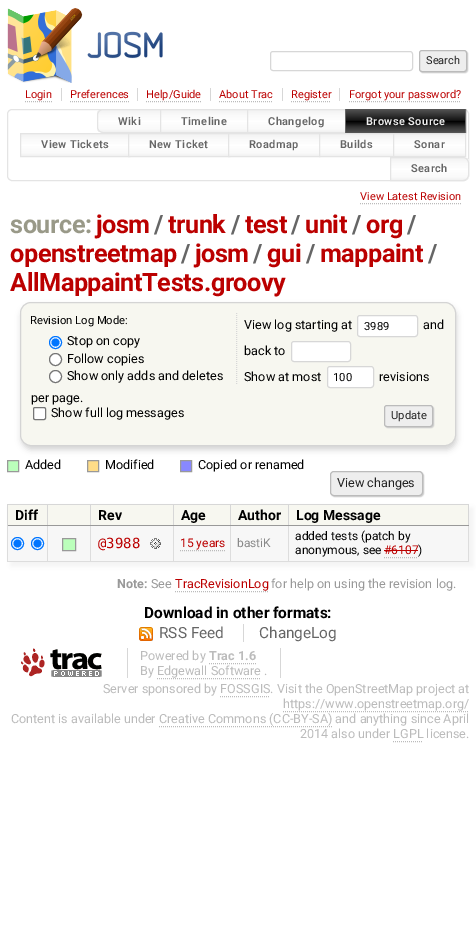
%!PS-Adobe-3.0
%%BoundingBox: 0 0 476 947
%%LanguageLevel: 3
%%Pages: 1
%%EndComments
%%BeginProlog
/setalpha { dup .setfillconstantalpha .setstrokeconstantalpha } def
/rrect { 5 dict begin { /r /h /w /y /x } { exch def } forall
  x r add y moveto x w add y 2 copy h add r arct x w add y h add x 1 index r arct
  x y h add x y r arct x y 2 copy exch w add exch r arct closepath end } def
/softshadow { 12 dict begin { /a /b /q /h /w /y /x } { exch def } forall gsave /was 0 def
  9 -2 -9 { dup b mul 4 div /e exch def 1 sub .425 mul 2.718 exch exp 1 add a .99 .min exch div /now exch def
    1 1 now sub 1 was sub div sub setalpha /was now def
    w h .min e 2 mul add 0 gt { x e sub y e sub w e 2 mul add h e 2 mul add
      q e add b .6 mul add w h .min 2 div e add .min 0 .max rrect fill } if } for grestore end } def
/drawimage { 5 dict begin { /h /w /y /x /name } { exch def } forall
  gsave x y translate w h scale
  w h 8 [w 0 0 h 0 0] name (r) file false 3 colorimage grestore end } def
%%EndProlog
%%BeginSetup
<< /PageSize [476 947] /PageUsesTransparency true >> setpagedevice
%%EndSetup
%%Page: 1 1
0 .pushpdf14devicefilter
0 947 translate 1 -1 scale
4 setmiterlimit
1 setgray
0 0 476 947 rectfill
(images/1.raw) 7 8 156 75 drawimage
0.843 setgray
270.5 51.5 142 19 2.5 rrect stroke
0.8 setgray
420 51 48 22 3 0.5 1 softshadow
0.933 setgray
419.5 50.5 47 21 2.5 rrect gsave fill grestore
0.733 setgray
stroke
0.843 setgray
61 88 1 13 rectfill
0.733 setgray
[1 1] 0 setdash
newpath 25 101.5 moveto 52 101.5 lineto stroke
0.843 setgray
137 88 1 13 rectfill
0.733 setgray
newpath 70 101.5 moveto 129 101.5 lineto stroke
0.843 setgray
210 88 1 13 rectfill
0.733 setgray
newpath 146 101.5 moveto 202 101.5 lineto stroke
0.843 setgray
282 88 1 13 rectfill
0.733 setgray
newpath 219 101.5 moveto 273 101.5 lineto stroke
0.843 setgray
339 88 1 13 rectfill
0.733 setgray
newpath 291 101.5 moveto 331 101.5 lineto stroke
newpath 349 101.5 moveto 461 101.5 lineto stroke
0.894 setgray
[] 0 setdash
7.5 109.5 461 71 4.5 rrect stroke
gsave
newpath 103 109 moveto 162 109 lineto 162 133 lineto 103 133 lineto 99.5 133 97 130.5 97 127 curveto 97 115 lineto 97 111.5 99.5 109 103 109 curveto closepath clip newpath
gsave newpath 97 110 moveto 160 110 lineto 160 132 lineto 97 132 lineto closepath clip newpath
<< /ShadingType 2 /ColorSpace /DeviceRGB /Coords [130 110 130 132] /Extend [true true] /Function << /FunctionType 3 /Domain [0 1] /Functions [<< /FunctionType 2 /Domain [0 1] /C0 [0.949 0.949 0.949] /C1 [0.98 0.98 0.98] /N 1 >> << /FunctionType 2 /Domain [0 1] /C0 [0.98 0.98 0.98] /C1 [0.996 0.996 0.996] /N 1 >> << /FunctionType 2 /Domain [0 1] /C0 [0.996 0.996 0.996] /C1 [1 1 1] /N 1 >> << /FunctionType 2 /Domain [0 1] /C0 [1 1 1] /C1 [0.98 0.98 0.98] /N 1 >> << /FunctionType 2 /Domain [0 1] /C0 [0.98 0.98 0.98] /C1 [0.949 0.949 0.949] /N 1 >>] /Bounds [0.25 0.49 0.51 0.85] /Encode [0 1 0 1 0 1 0 1 0 1] >> >> shfill grestore
grestore
newpath 103 109.5 moveto 161.5 109.5 lineto 161.5 132.5 lineto 103 132.5 lineto 100 132.5 97.5 130 97.5 127 curveto 97.5 115 lineto 97.5 112 100 109.5 103 109.5 curveto closepath stroke
gsave newpath 161 110 moveto 247 110 lineto 247 132 lineto 161 132 lineto closepath clip newpath
<< /ShadingType 2 /ColorSpace /DeviceRGB /Coords [204 110 204 132] /Extend [true true] /Function << /FunctionType 3 /Domain [0 1] /Functions [<< /FunctionType 2 /Domain [0 1] /C0 [0.949 0.949 0.949] /C1 [0.98 0.98 0.98] /N 1 >> << /FunctionType 2 /Domain [0 1] /C0 [0.98 0.98 0.98] /C1 [0.996 0.996 0.996] /N 1 >> << /FunctionType 2 /Domain [0 1] /C0 [0.996 0.996 0.996] /C1 [1 1 1] /N 1 >> << /FunctionType 2 /Domain [0 1] /C0 [1 1 1] /C1 [0.98 0.98 0.98] /N 1 >> << /FunctionType 2 /Domain [0 1] /C0 [0.98 0.98 0.98] /C1 [0.949 0.949 0.949] /N 1 >>] /Bounds [0.25 0.49 0.51 0.85] /Encode [0 1 0 1 0 1 0 1 0 1] >> >> shfill grestore
160.5 109.5 87 23 rectstroke
gsave newpath 248 110 moveto 345 110 lineto 345 132 lineto 248 132 lineto closepath clip newpath
<< /ShadingType 2 /ColorSpace /DeviceRGB /Coords [297 110 297 132] /Extend [true true] /Function << /FunctionType 3 /Domain [0 1] /Functions [<< /FunctionType 2 /Domain [0 1] /C0 [0.949 0.949 0.949] /C1 [0.98 0.98 0.98] /N 1 >> << /FunctionType 2 /Domain [0 1] /C0 [0.98 0.98 0.98] /C1 [0.996 0.996 0.996] /N 1 >> << /FunctionType 2 /Domain [0 1] /C0 [0.996 0.996 0.996] /C1 [1 1 1] /N 1 >> << /FunctionType 2 /Domain [0 1] /C0 [1 1 1] /C1 [0.98 0.98 0.98] /N 1 >> << /FunctionType 2 /Domain [0 1] /C0 [0.98 0.98 0.98] /C1 [0.949 0.949 0.949] /N 1 >>] /Bounds [0.25 0.49 0.51 0.85] /Encode [0 1 0 1 0 1 0 1 0 1] >> >> shfill grestore
247.5 109.5 98 23 rectstroke
0.4 setgray
345.5 109.5 120 23 rectstroke
gsave newpath 346 109 moveto 465 109 lineto 465 133 lineto 346 133 lineto closepath clip newpath
<< /ShadingType 2 /ColorSpace /DeviceRGB /Coords [406 109 406 133] /Extend [true true] /Function << /FunctionType 3 /Domain [0 1] /Functions [<< /FunctionType 2 /Domain [0 1] /C0 [0.333 0.333 0.333] /C1 [0.2 0.2 0.2] /N 1 >> << /FunctionType 2 /Domain [0 1] /C0 [0.2 0.2 0.2] /C1 [0.067 0.067 0.067] /N 1 >> << /FunctionType 2 /Domain [0 1] /C0 [0.067 0.067 0.067] /C1 [0 0 0] /N 1 >> << /FunctionType 2 /Domain [0 1] /C0 [0 0 0] /C1 [0.2 0.2 0.2] /N 1 >> << /FunctionType 2 /Domain [0 1] /C0 [0.2 0.2 0.2] /C1 [0.333 0.333 0.333] /N 1 >>] /Bounds [0.25 0.49 0.51 0.75] /Encode [0 1 0 1 0 1 0 1 0 1] >> >> shfill grestore
gsave newpath 21 134 moveto 128 134 lineto 128 156 lineto 21 156 lineto closepath clip newpath
<< /ShadingType 2 /ColorSpace /DeviceRGB /Coords [75 134 75 156] /Extend [true true] /Function << /FunctionType 3 /Domain [0 1] /Functions [<< /FunctionType 2 /Domain [0 1] /C0 [0.949 0.949 0.949] /C1 [0.98 0.98 0.98] /N 1 >> << /FunctionType 2 /Domain [0 1] /C0 [0.98 0.98 0.98] /C1 [0.996 0.996 0.996] /N 1 >> << /FunctionType 2 /Domain [0 1] /C0 [0.996 0.996 0.996] /C1 [1 1 1] /N 1 >> << /FunctionType 2 /Domain [0 1] /C0 [1 1 1] /C1 [0.98 0.98 0.98] /N 1 >> << /FunctionType 2 /Domain [0 1] /C0 [0.98 0.98 0.98] /C1 [0.949 0.949 0.949] /N 1 >>] /Bounds [0.25 0.49 0.51 0.85] /Encode [0 1 0 1 0 1 0 1 0 1] >> >> shfill grestore
0.894 setgray
20.5 133.5 109 23 rectstroke
gsave newpath 129 134 moveto 228 134 lineto 228 156 lineto 129 156 lineto closepath clip newpath
<< /ShadingType 2 /ColorSpace /DeviceRGB /Coords [179 134 179 156] /Extend [true true] /Function << /FunctionType 3 /Domain [0 1] /Functions [<< /FunctionType 2 /Domain [0 1] /C0 [0.949 0.949 0.949] /C1 [0.98 0.98 0.98] /N 1 >> << /FunctionType 2 /Domain [0 1] /C0 [0.98 0.98 0.98] /C1 [0.996 0.996 0.996] /N 1 >> << /FunctionType 2 /Domain [0 1] /C0 [0.996 0.996 0.996] /C1 [1 1 1] /N 1 >> << /FunctionType 2 /Domain [0 1] /C0 [1 1 1] /C1 [0.98 0.98 0.98] /N 1 >> << /FunctionType 2 /Domain [0 1] /C0 [0.98 0.98 0.98] /C1 [0.949 0.949 0.949] /N 1 >>] /Bounds [0.25 0.49 0.51 0.85] /Encode [0 1 0 1 0 1 0 1 0 1] >> >> shfill grestore
128.5 133.5 101 23 rectstroke
gsave newpath 229 134 moveto 319 134 lineto 319 156 lineto 229 156 lineto closepath clip newpath
<< /ShadingType 2 /ColorSpace /DeviceRGB /Coords [274 134 274 156] /Extend [true true] /Function << /FunctionType 3 /Domain [0 1] /Functions [<< /FunctionType 2 /Domain [0 1] /C0 [0.949 0.949 0.949] /C1 [0.98 0.98 0.98] /N 1 >> << /FunctionType 2 /Domain [0 1] /C0 [0.98 0.98 0.98] /C1 [0.996 0.996 0.996] /N 1 >> << /FunctionType 2 /Domain [0 1] /C0 [0.996 0.996 0.996] /C1 [1 1 1] /N 1 >> << /FunctionType 2 /Domain [0 1] /C0 [1 1 1] /C1 [0.98 0.98 0.98] /N 1 >> << /FunctionType 2 /Domain [0 1] /C0 [0.98 0.98 0.98] /C1 [0.949 0.949 0.949] /N 1 >>] /Bounds [0.25 0.49 0.51 0.85] /Encode [0 1 0 1 0 1 0 1 0 1] >> >> shfill grestore
228.5 133.5 91 23 rectstroke
gsave newpath 320 134 moveto 393 134 lineto 393 156 lineto 320 156 lineto closepath clip newpath
<< /ShadingType 2 /ColorSpace /DeviceRGB /Coords [357 134 357 156] /Extend [true true] /Function << /FunctionType 3 /Domain [0 1] /Functions [<< /FunctionType 2 /Domain [0 1] /C0 [0.949 0.949 0.949] /C1 [0.98 0.98 0.98] /N 1 >> << /FunctionType 2 /Domain [0 1] /C0 [0.98 0.98 0.98] /C1 [0.996 0.996 0.996] /N 1 >> << /FunctionType 2 /Domain [0 1] /C0 [0.996 0.996 0.996] /C1 [1 1 1] /N 1 >> << /FunctionType 2 /Domain [0 1] /C0 [1 1 1] /C1 [0.98 0.98 0.98] /N 1 >> << /FunctionType 2 /Domain [0 1] /C0 [0.98 0.98 0.98] /C1 [0.949 0.949 0.949] /N 1 >>] /Bounds [0.25 0.49 0.51 0.85] /Encode [0 1 0 1 0 1 0 1 0 1] >> >> shfill grestore
319.5 133.5 74 23 rectstroke
gsave newpath 394 134 moveto 465 134 lineto 465 156 lineto 394 156 lineto closepath clip newpath
<< /ShadingType 2 /ColorSpace /DeviceRGB /Coords [430 134 430 156] /Extend [true true] /Function << /FunctionType 3 /Domain [0 1] /Functions [<< /FunctionType 2 /Domain [0 1] /C0 [0.949 0.949 0.949] /C1 [0.98 0.98 0.98] /N 1 >> << /FunctionType 2 /Domain [0 1] /C0 [0.98 0.98 0.98] /C1 [0.996 0.996 0.996] /N 1 >> << /FunctionType 2 /Domain [0 1] /C0 [0.996 0.996 0.996] /C1 [1 1 1] /N 1 >> << /FunctionType 2 /Domain [0 1] /C0 [1 1 1] /C1 [0.98 0.98 0.98] /N 1 >> << /FunctionType 2 /Domain [0 1] /C0 [0.98 0.98 0.98] /C1 [0.949 0.949 0.949] /N 1 >>] /Bounds [0.25 0.49 0.51 0.85] /Encode [0 1 0 1 0 1 0 1 0 1] >> >> shfill grestore
393.5 133.5 72 23 rectstroke
gsave
newpath 390 157 moveto 463 157 lineto 466.5 157 469 159.5 469 163 curveto 469 175 lineto 469 178.5 466.5 181 463 181 curveto 390 181 lineto closepath clip newpath
gsave newpath 391 158 moveto 469 158 lineto 469 180 lineto 391 180 lineto closepath clip newpath
<< /ShadingType 2 /ColorSpace /DeviceRGB /Coords [430 158 430 180] /Extend [true true] /Function << /FunctionType 3 /Domain [0 1] /Functions [<< /FunctionType 2 /Domain [0 1] /C0 [0.949 0.949 0.949] /C1 [0.98 0.98 0.98] /N 1 >> << /FunctionType 2 /Domain [0 1] /C0 [0.98 0.98 0.98] /C1 [0.996 0.996 0.996] /N 1 >> << /FunctionType 2 /Domain [0 1] /C0 [0.996 0.996 0.996] /C1 [1 1 1] /N 1 >> << /FunctionType 2 /Domain [0 1] /C0 [1 1 1] /C1 [0.98 0.98 0.98] /N 1 >> << /FunctionType 2 /Domain [0 1] /C0 [0.98 0.98 0.98] /C1 [0.949 0.949 0.949] /N 1 >>] /Bounds [0.25 0.49 0.51 0.85] /Encode [0 1 0 1 0 1 0 1 0 1] >> >> shfill grestore
grestore
newpath 390.5 157.5 moveto 463 157.5 lineto 466 157.5 468.5 160 468.5 163 curveto 468.5 175 lineto 468.5 178 466 180.5 463 180.5 curveto 390.5 180.5 lineto closepath stroke
0.733 setgray
[1 1] 0 setdash
newpath 360 203.5 moveto 461 203.5 lineto stroke
0.831 setgray
21 306 436 144 11 3 1 softshadow
0.969 0.969 0.941 setrgbcolor
20.5 302.5 435 143 10.5 rrect gsave fill grestore
0.831 setgray
[] 0 setdash
stroke
0.843 setgray
[1 1] 0 setdash
newpath 236.5 313 moveto 236.5 385 lineto stroke
1 setgray
newpath 55.5 342.5 6 0 360 arc closepath gsave fill grestore
0 0.459 1 setrgbcolor
[] 0 setdash
stroke
newpath 55.5 342.5 4 0 360 arc closepath fill
1 setgray
newpath 55.5 359.5 6 0 360 arc closepath gsave fill grestore
0.463 setgray
stroke
1 setgray
newpath 55.5 376.5 6 0 360 arc closepath gsave fill grestore
0.463 setgray
stroke
1 setgray
357.5 315.5 60 21 2.5 rrect gsave fill grestore
0.843 setgray
stroke
1 setgray
291.5 341.5 59 20 2.5 rrect gsave fill grestore
0.843 setgray
stroke
1 setgray
327.5 366.5 46 21 2.5 rrect gsave fill grestore
0.843 setgray
stroke
1 setgray
33.5 407.5 12 12 1.5 rrect gsave fill grestore
0.463 setgray
stroke
0.8 setgray
385 406 49 22 3 0.5 1 softshadow
0.933 setgray
384.5 405.5 48 21 2.5 rrect gsave fill grestore
0.733 setgray
stroke
0.733 1 0.733 setrgbcolor
newpath 7.5 460.5 moveto 18.5 460.5 lineto 18.5 471.5 lineto 7.5 471.5 lineto closepath gsave fill grestore
0.6 setgray
stroke
1 0.867 0.533 setrgbcolor
newpath 87.5 460.5 moveto 98.5 460.5 lineto 98.5 471.5 lineto 87.5 471.5 lineto closepath gsave fill grestore
0.6 setgray
stroke
0.533 0.533 1 setrgbcolor
newpath 180.5 460.5 moveto 191.5 460.5 lineto 191.5 471.5 lineto 180.5 471.5 lineto closepath gsave fill grestore
0.6 setgray
stroke
0.8 setgray
331 472 93 25 4 0.5 1 softshadow
0.933 setgray
330.5 471.5 92 24 3.5 rrect gsave fill grestore
0.733 setgray
stroke
0.949 setgray
11 508 462 58 0 3 1 softshadow
0.969 0.969 0.941 setrgbcolor
8 505 460 20 rectfill
0.843 setgray
288 504 181 1 rectfill
0.867 setgray
468 525 1 37 rectfill
0.843 setgray
468 504 1 22 rectfill
0.969 setgray
8 526 460 35 rectfill
0.867 setgray
288 561 181 1 rectfill
288 525 1 37 rectfill
0.6 setgray
288 525 181 1 rectfill
0.843 setgray
288 504 1 22 rectfill
230 504 59 1 rectfill
0.867 setgray
230 561 59 1 rectfill
230 525 1 37 rectfill
0.6 setgray
230 525 59 1 rectfill
0.843 setgray
230 504 1 22 rectfill
173 504 58 1 rectfill
0.867 setgray
173 561 58 1 rectfill
173 525 1 37 rectfill
0.6 setgray
173 525 58 1 rectfill
0.843 setgray
173 504 1 22 rectfill
90 504 84 1 rectfill
0.867 setgray
90 561 84 1 rectfill
90 525 1 37 rectfill
0.6 setgray
90 525 84 1 rectfill
0.843 setgray
90 504 1 22 rectfill
47 504 44 1 rectfill
0.867 setgray
47 561 44 1 rectfill
47 525 1 37 rectfill
0.6 setgray
47 525 44 1 rectfill
0.843 setgray
47 504 1 22 rectfill
7 504 41 1 rectfill
0.867 setgray
7 561 41 1 rectfill
7 525 1 37 rectfill
0.6 setgray
7 525 41 1 rectfill
0.843 setgray
7 504 1 22 rectfill
1 setgray
newpath 17.5 543.5 6 0 360 arc closepath gsave fill grestore
0 0.459 1 setrgbcolor
stroke
newpath 17.5 543.5 4 0 360 arc closepath fill
1 setgray
newpath 37.5 543.5 6 0 360 arc closepath gsave fill grestore
0 0.459 1 setrgbcolor
stroke
newpath 37.5 543.5 4 0 360 arc closepath fill
0.733 1 0.733 setrgbcolor
newpath 62.5 538.5 moveto 75.5 538.5 lineto 75.5 550.5 lineto 62.5 550.5 lineto closepath gsave fill grestore
0.6 setgray
stroke
(images/2.raw) 150 538 11 11 drawimage
0.733 setgray
[1 1] 0 setdash
newpath 180 550.5 moveto 225 550.5 lineto stroke
newpath 384 557.5 moveto 418 557.5 lineto stroke
0.733 0 0 setrgbcolor
384 550 34 1 rectfill
0.733 setgray
newpath 175 591.5 moveto 268 591.5 lineto stroke
(images/3.raw) 139 627 14 14 drawimage
0.843 setgray
243 624 1 18 rectfill
(images/4.raw) 21 648 81 29 drawimage
280 648 1 30 rectfill
127 648 1 30 rectfill
0.733 setgray
newpath 209 663.5 moveto 256 663.5 lineto stroke
newpath 157 678.5 moveto 261 678.5 lineto stroke
newpath 220 696.5 moveto 270 696.5 lineto stroke
newpath 283 711.5 moveto 469 711.5 lineto stroke
newpath 159 726.5 moveto 332 726.5 lineto stroke
newpath 393 741.5 moveto 423 741.5 lineto stroke
/Roboto-Regular [11 0 0 -11 0 0] selectfont
0.133 setgray
426 64 moveto (Search) show
0.733 0 0 setrgbcolor
25 98 moveto (Login) show
70 98 moveto (Preferences) show
146 98 moveto (Help/Guide) show
219 98 moveto (About Trac) show
291 98 moveto (Register) show
349 98 moveto (Forgot your password?) show
/Roboto-SemiBold [11 0 0 -11 0 0] selectfont
0.4 setgray
118 125 moveto 0.4 0 (Wiki) ashow
181 125 moveto 0.4 0 (Timeline) ashow
268 125 moveto 0.4 0 (Changelog) ashow
0.933 setgray
366 125 moveto 0.4 0 (Browse Source) ashow
0.4 setgray
41 148 moveto 0.4 0 (View Tickets) ashow
149 148 moveto 0.4 0 (New Ticket) ashow
249 148 moveto 0.4 0 (Roadmap) ashow
340 148 moveto 0.4 0 (Builds) ashow
414 148 moveto 0.4 0 (Sonar) ashow
411 172 moveto 0.4 0 (Search) ashow
/Roboto-Regular [11 0 0 -11 0 0] selectfont
0.733 0 0 setrgbcolor
360 200 moveto (View Latest Revision) show
/Roboto-Bold [25.25 0 0 -25.25 0 0] selectfont
0.6 0.6 0.533 setrgbcolor
10 233 moveto -0.45 0 (source:) ashow
0.733 0 0 setrgbcolor
96 233 moveto -0.45 0 (josm) ashow
0.4 setgray
154 233 moveto -0.45 0 (/) ashow
0.733 0 0 setrgbcolor
168 233 moveto -0.45 0 (trunk) ashow
0.4 setgray
231 233 moveto -0.45 0 (/) ashow
0.733 0 0 setrgbcolor
245 233 moveto -0.45 0 (test) ashow
0.4 setgray
291 233 moveto -0.45 0 (/) ashow
0.733 0 0 setrgbcolor
305 233 moveto -0.45 0 (unit) ashow
0.4 setgray
352 233 moveto -0.45 0 (/) ashow
0.733 0 0 setrgbcolor
366 233 moveto -0.45 0 (org) ashow
0.4 setgray
407 233 moveto -0.45 0 (/) ashow
0.733 0 0 setrgbcolor
10 262 moveto -0.45 0 (openstreetmap) ashow
0.4 setgray
181 262 moveto -0.45 0 (/) ashow
0.733 0 0 setrgbcolor
195 262 moveto -0.45 0 (josm) ashow
0.4 setgray
253 262 moveto -0.45 0 (/) ashow
0.733 0 0 setrgbcolor
267 262 moveto -0.45 0 (gui) ashow
0.4 setgray
306 262 moveto -0.45 0 (/) ashow
0.733 0 0 setrgbcolor
320 262 moveto -0.45 0 (mappaint) ashow
0.4 setgray
428 262 moveto -0.45 0 (/) ashow
0.733 0 0 setrgbcolor
10 291 moveto -0.45 0 (AllMappaintTests.groovy) ashow
/Roboto-Regular [11.25 0 0 -11.25 0 0] selectfont
0 setgray
30 324 moveto (Revision Log Mode:) show
/Roboto-Regular [12.6 0 0 -12.6 0 0] selectfont
67 345 moveto (Stop on copy) show
67 363 moveto (Follow copies) show
67 380 moveto (Show only adds and deletes) show
244 329 moveto (View log starting at) show
/Roboto-Regular [11.25 0 0 -11.25 0 0] selectfont
364 330 moveto (3989) show
/Roboto-Regular [12.6 0 0 -12.6 0 0] selectfont
423 329 moveto (and) show
244 355 moveto (back to) show
244 381 moveto (Show at most) show
/Roboto-Regular [11.25 0 0 -11.25 0 0] selectfont
333 381 moveto (100) show
/Roboto-Regular [12.6 0 0 -12.6 0 0] selectfont
379 381 moveto (revisions) show
31 402 moveto (per page.) show
51 417 moveto (Show full log messages) show
/Roboto-Regular [11.25 0 0 -11.25 0 0] selectfont
0.133 setgray
391 419 moveto (Update) show
/Roboto-Regular [12.6 0 0 -12.6 0 0] selectfont
0 setgray
25 469 moveto (Added) show
105 469 moveto (Modified) show
198 469 moveto (Copied or renamed) show
0.133 setgray
337 487 moveto (View changes) show
/Roboto-Bold [14 0 0 -14 0 0] selectfont
0 setgray
15 520 moveto (Diff) show
98 520 moveto (Rev) show
181 520 moveto (Age) show
238 520 moveto (Author) show
296 520 moveto (Log Message) show
/DejaVuSansMono-Regular [14 0 0 -14 0 0] selectfont
0.733 0 0 setrgbcolor
98 548 moveto (@3988) show
/Roboto-Regular [12 0 0 -12 0 0] selectfont
180 547 moveto (15 years) show
0.533 setgray
237 547 moveto (bastiK) show
0 setgray
295 540 moveto (added tests \(patch by) show
295 554 moveto (anonymous, see) show
0.733 0 0 setrgbcolor
384 554 moveto (#6107) show
0 setgray
418 554 moveto (\)) show
/Roboto-Bold [12.6 0 0 -12.6 0 0] selectfont
0.6 setgray
117 588 moveto (Note:) show
/Roboto-Regular [12.6 0 0 -12.6 0 0] selectfont
151 588 moveto (See) show
0.733 0 0 setrgbcolor
175 588 moveto (TracRevisionLog) show
0.6 setgray
271 588 moveto (for help on using the revision log.) show
/Roboto-Bold [15.4 0 0 -15.4 0 0] selectfont
0 setgray
144 618 moveto (Download in other formats:) show
/Roboto-Regular [15.4 0 0 -15.4 0 0] selectfont
0.4 setgray
159 638 moveto (RSS Feed) show
259 638 moveto (ChangeLog) show
/Roboto-Regular [12.6 0 0 -12.6 0 0] selectfont
0.733 setgray
140 660 moveto (Powered by) show
/Roboto-Bold [12.6 0 0 -12.6 0 0] selectfont
209 660 moveto (Trac 1.6) show
/Roboto-Regular [12.6 0 0 -12.6 0 0] selectfont
140 675 moveto (By Edgewall Software .) show
103 693 moveto (Server sponsored by FOSSGIS. Visit the OpenStreetMap project at) show
283 708 moveto (https://www.openstreetmap.org/) show
11 723 moveto (Content is available under Creative Commons \(CC-BY-SA\) and anything since April) show
300 738 moveto (2014 also under LGPL license.) show
.poppdf14devicefilter showpage
%%EOF
